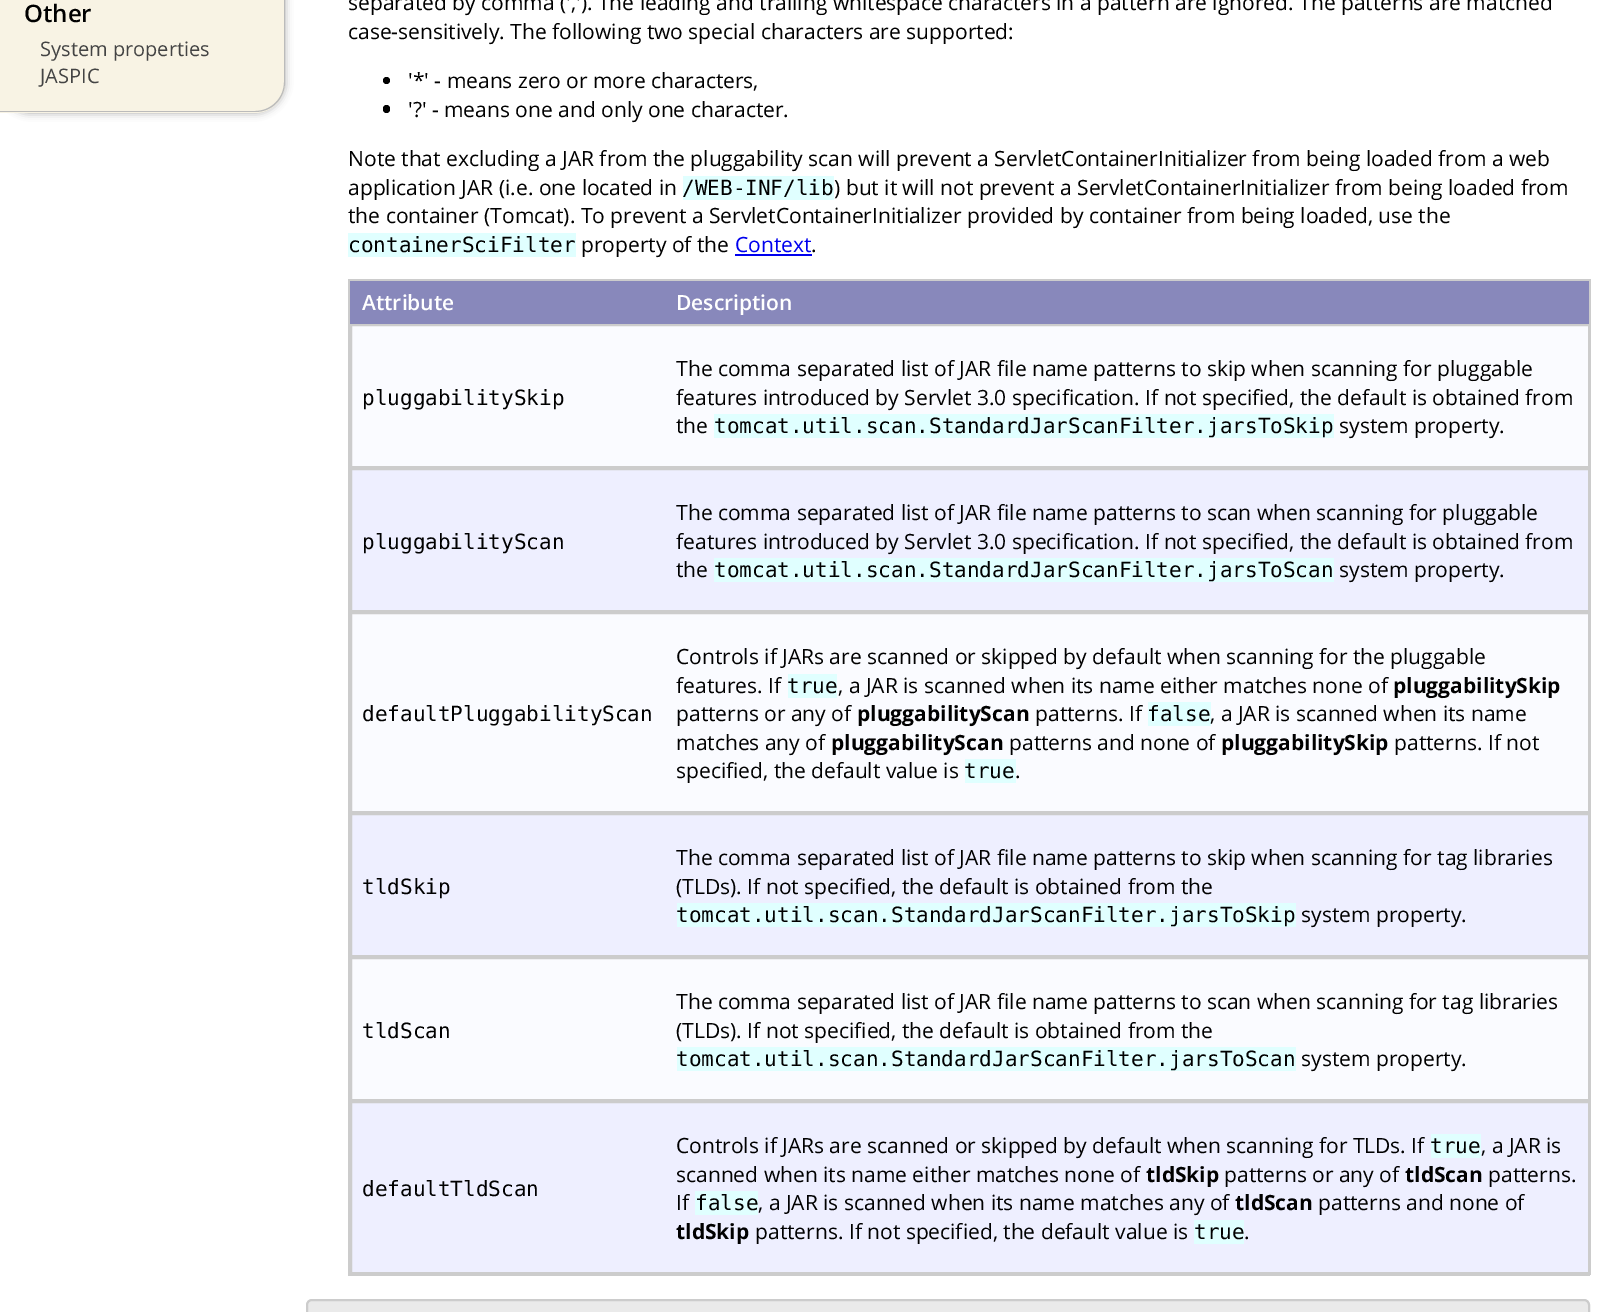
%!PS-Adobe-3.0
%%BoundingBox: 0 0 1620 1312
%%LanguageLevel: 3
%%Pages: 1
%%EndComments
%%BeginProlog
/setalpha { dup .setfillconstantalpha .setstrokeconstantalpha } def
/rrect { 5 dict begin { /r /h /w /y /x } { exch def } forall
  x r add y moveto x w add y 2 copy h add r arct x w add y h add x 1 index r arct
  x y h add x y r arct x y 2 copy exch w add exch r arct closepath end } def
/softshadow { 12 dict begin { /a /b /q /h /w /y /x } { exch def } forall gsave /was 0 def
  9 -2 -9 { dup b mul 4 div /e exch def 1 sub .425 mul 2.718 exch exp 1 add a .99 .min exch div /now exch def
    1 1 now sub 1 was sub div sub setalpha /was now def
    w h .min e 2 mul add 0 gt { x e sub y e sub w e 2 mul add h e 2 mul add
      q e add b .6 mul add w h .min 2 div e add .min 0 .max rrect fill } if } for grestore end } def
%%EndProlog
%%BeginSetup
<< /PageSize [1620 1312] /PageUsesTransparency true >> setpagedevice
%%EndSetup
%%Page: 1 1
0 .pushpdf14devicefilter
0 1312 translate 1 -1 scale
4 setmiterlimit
1 setgray
0 0 1620 1312 rectfill
0.667 setgray
0 -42 285 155 30 4 1 softshadow
0.973 0.953 0.894 setrgbcolor
newpath 0 -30 moveto 285 -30 lineto 285 83 lineto 285 99.5 271.5 113 255 113 curveto 0 113 lineto closepath fill
0.733 setgray
newpath 0 -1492 moveto 285 -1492 lineto 285 82 lineto 285 99 272 112 255 112 curveto 0 112 lineto closepath 0 -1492 moveto 284 -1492 lineto 284 82 lineto 284 98 271 111 255 111 curveto 0 111 lineto closepath eofill
0 setgray
newpath 386.5 80.5 3.5 0 360 arc closepath fill
383 105 7 8 3.5 rrect fill
0.878 1 1 setrgbcolor
683 176 151 24 rectfill
348 233 228 24 rectfill
0 0 0.933 setrgbcolor
735 254 77 2 rectfill
0.8 setgray
348 279 1242 2 rectfill
0.98 0.984 1 setrgbcolor
newpath 351 325 moveto 1589 325 lineto 1589 467 lineto 351 467 lineto closepath gsave fill grestore
0.8 setgray
2 setlinewidth
stroke
0.933 0.937 1 setrgbcolor
newpath 351 1102 moveto 1589 1102 lineto 1589 1273 lineto 351 1273 lineto closepath gsave fill grestore
0.8 setgray
stroke
1589 1101 2 174 rectfill
1590 324 1 779 rectfill
1589 279 2 47 rectfill
348 1101 2 2 rectfill
348 1274 1242 2 rectfill
348 1101 2 174 rectfill
348 957 2 146 rectfill
348 813 2 146 rectfill
348 612 2 203 rectfill
348 468 2 146 rectfill
348 324 2 146 rectfill
348 279 2 47 rectfill
0.533 0.533 0.733 setrgbcolor
350 281 1239 43 rectfill
0.878 1 1 setrgbcolor
714 414 620 24 rectfill
0.933 0.937 1 setrgbcolor
newpath 351 469 moveto 1589 469 lineto 1589 611 lineto 351 611 lineto closepath gsave fill grestore
0.8 setgray
stroke
0.878 1 1 setrgbcolor
714 558 620 24 rectfill
0.98 0.984 1 setrgbcolor
newpath 351 613 moveto 1589 613 lineto 1589 812 lineto 351 812 lineto closepath gsave fill grestore
0.8 setgray
stroke
0.878 1 1 setrgbcolor
788 674 49 24 rectfill
1148 702 63 24 rectfill
965 759 51 24 rectfill
0.933 0.937 1 setrgbcolor
newpath 351 814 moveto 1589 814 lineto 1589 956 lineto 351 956 lineto closepath gsave fill grestore
0.8 setgray
stroke
0.878 1 1 setrgbcolor
677 903 619 24 rectfill
0.98 0.984 1 setrgbcolor
newpath 351 958 moveto 1589 958 lineto 1589 1100 lineto 351 1100 lineto closepath gsave fill grestore
0.8 setgray
stroke
0.878 1 1 setrgbcolor
677 1047 619 24 rectfill
1431 1134 50 24 rectfill
695 1191 63 24 rectfill
1194 1220 50 24 rectfill
0.918 setgray
307 1300 1282 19 5 rrect gsave fill grestore
0.8 setgray
stroke
/OpenSans-SemiBold [24 0 0 -24 0 0] selectfont
0 setgray
24 22 moveto (Other) show
/OpenSans-Regular [20 0 0 -20 0 0] selectfont
0.267 setgray
40 56 moveto (System properties) show
40 83 moveto (JASPIC) show
/OpenSans-Regular [21 0 0 -21 0 0] selectfont
0 setgray
348 10 moveto (separated by comma \(','\). The leading and trailing whitespace characters in a pattern are ignored. The patterns are matched) show
348 39 moveto (case-sensitively. The following two special characters are supported:) show
408 88 moveto ('*' - means zero or more characters,) show
408 117 moveto ('?' - means one and only one character.) show
348 166 moveto (Note that excluding a JAR from the pluggability scan will prevent a ServletContainerInitializer from being loaded from a web) show
348 195 moveto (application JAR \(i.e. one located in) show
/DejaVuSansMono-Regular [21 0 0 -21 0 0] selectfont
682 195 moveto (/WEB-INF/lib) show
/OpenSans-Regular [21 0 0 -21 0 0] selectfont
834 195 moveto (\) but it will not prevent a ServletContainerInitializer from being loaded from) show
348 223 moveto (the container \(Tomcat\). To prevent a ServletContainerInitializer provided by container from being loaded, use the) show
/DejaVuSansMono-Regular [21 0 0 -21 0 0] selectfont
348 252 moveto (containerSciFilter) show
/OpenSans-Regular [21 0 0 -21 0 0] selectfont
581 252 moveto (property of the) show
0 0 0.933 setrgbcolor
735 252 moveto (Context) show
0 setgray
811 252 moveto (.) show
/OpenSans-SemiBold [21 0 0 -21 0 0] selectfont
1 setgray
362 310 moveto (Attribute) show
676 310 moveto (Description) show
/DejaVuSansMono-Regular [21 0 0 -21 0 0] selectfont
0 setgray
362 405 moveto (pluggabilitySkip) show
/OpenSans-Regular [21 0 0 -21 0 0] selectfont
676 376 moveto (The comma separated list of JAR file name patterns to skip when scanning for pluggable) show
676 405 moveto (features introduced by Servlet 3.0 specification. If not specified, the default is obtained from) show
676 433 moveto (the) show
/DejaVuSansMono-Regular [21 0 0 -21 0 0] selectfont
714 433 moveto (tomcat.util.scan.StandardJarScanFilter.jarsToSkip) show
/OpenSans-Regular [21 0 0 -21 0 0] selectfont
1339 433 moveto (system property.) show
/DejaVuSansMono-Regular [21 0 0 -21 0 0] selectfont
362 549 moveto (pluggabilityScan) show
/OpenSans-Regular [21 0 0 -21 0 0] selectfont
676 520 moveto (The comma separated list of JAR file name patterns to scan when scanning for pluggable) show
676 549 moveto (features introduced by Servlet 3.0 specification. If not specified, the default is obtained from) show
676 577 moveto (the) show
/DejaVuSansMono-Regular [21 0 0 -21 0 0] selectfont
714 577 moveto (tomcat.util.scan.StandardJarScanFilter.jarsToScan) show
/OpenSans-Regular [21 0 0 -21 0 0] selectfont
1339 577 moveto (system property.) show
/DejaVuSansMono-Regular [21 0 0 -21 0 0] selectfont
362 721 moveto (defaultPluggabilityScan) show
/OpenSans-Regular [21 0 0 -21 0 0] selectfont
676 664 moveto (Controls if JARs are scanned or skipped by default when scanning for the pluggable) show
676 693 moveto (features. If) show
/DejaVuSansMono-Regular [21 0 0 -21 0 0] selectfont
787 693 moveto (true) show
/OpenSans-Regular [21 0 0 -21 0 0] selectfont
838 693 moveto (, a JAR is scanned when its name either matches none of) show
/OpenSans-Bold [21 0 0 -21 0 0] selectfont
1393 693 moveto (pluggabilitySkip) show
/OpenSans-Regular [21 0 0 -21 0 0] selectfont
676 721 moveto (patterns or any of) show
/OpenSans-Bold [21 0 0 -21 0 0] selectfont
857 721 moveto (pluggabilityScan) show
/OpenSans-Regular [21 0 0 -21 0 0] selectfont
1035 721 moveto (patterns. If) show
/DejaVuSansMono-Regular [21 0 0 -21 0 0] selectfont
1147 721 moveto (false) show
/OpenSans-Regular [21 0 0 -21 0 0] selectfont
1210 721 moveto (, a JAR is scanned when its name) show
676 750 moveto (matches any of) show
/OpenSans-Bold [21 0 0 -21 0 0] selectfont
831 750 moveto (pluggabilityScan) show
/OpenSans-Regular [21 0 0 -21 0 0] selectfont
1009 750 moveto (patterns and none of) show
/OpenSans-Bold [21 0 0 -21 0 0] selectfont
1221 750 moveto (pluggabilitySkip) show
/OpenSans-Regular [21 0 0 -21 0 0] selectfont
1394 750 moveto (patterns. If not) show
676 778 moveto (specified, the default value is) show
/DejaVuSansMono-Regular [21 0 0 -21 0 0] selectfont
964 778 moveto (true) show
/OpenSans-Regular [21 0 0 -21 0 0] selectfont
1015 778 moveto (.) show
/DejaVuSansMono-Regular [21 0 0 -21 0 0] selectfont
362 894 moveto (tldSkip) show
/OpenSans-Regular [21 0 0 -21 0 0] selectfont
676 865 moveto (The comma separated list of JAR file name patterns to skip when scanning for tag libraries) show
676 894 moveto (\(TLDs\). If not specified, the default is obtained from the) show
/DejaVuSansMono-Regular [21 0 0 -21 0 0] selectfont
676 922 moveto (tomcat.util.scan.StandardJarScanFilter.jarsToSkip) show
/OpenSans-Regular [21 0 0 -21 0 0] selectfont
1301 922 moveto (system property.) show
/DejaVuSansMono-Regular [21 0 0 -21 0 0] selectfont
362 1038 moveto (tldScan) show
/OpenSans-Regular [21 0 0 -21 0 0] selectfont
676 1009 moveto (The comma separated list of JAR file name patterns to scan when scanning for tag libraries) show
676 1038 moveto (\(TLDs\). If not specified, the default is obtained from the) show
/DejaVuSansMono-Regular [21 0 0 -21 0 0] selectfont
676 1066 moveto (tomcat.util.scan.StandardJarScanFilter.jarsToScan) show
/OpenSans-Regular [21 0 0 -21 0 0] selectfont
1301 1066 moveto (system property.) show
/DejaVuSansMono-Regular [21 0 0 -21 0 0] selectfont
362 1196 moveto (defaultTldScan) show
/OpenSans-Regular [21 0 0 -21 0 0] selectfont
676 1153 moveto (Controls if JARs are scanned or skipped by default when scanning for TLDs. If) show
/DejaVuSansMono-Regular [21 0 0 -21 0 0] selectfont
1430 1153 moveto (true) show
/OpenSans-Regular [21 0 0 -21 0 0] selectfont
1481 1153 moveto (, a JAR is) show
676 1182 moveto (scanned when its name either matches none of) show
/OpenSans-Bold [21 0 0 -21 0 0] selectfont
1146 1182 moveto (tldSkip) show
/OpenSans-Regular [21 0 0 -21 0 0] selectfont
1224 1182 moveto (patterns or any of) show
/OpenSans-Bold [21 0 0 -21 0 0] selectfont
1405 1182 moveto (tldScan) show
/OpenSans-Regular [21 0 0 -21 0 0] selectfont
1488 1182 moveto (patterns.) show
676 1210 moveto (If) show
/DejaVuSansMono-Regular [21 0 0 -21 0 0] selectfont
695 1210 moveto (false) show
/OpenSans-Regular [21 0 0 -21 0 0] selectfont
758 1210 moveto (, a JAR is scanned when its name matches any of) show
/OpenSans-Bold [21 0 0 -21 0 0] selectfont
1235 1210 moveto (tldScan) show
/OpenSans-Regular [21 0 0 -21 0 0] selectfont
1318 1210 moveto (patterns and none of) show
/OpenSans-Bold [21 0 0 -21 0 0] selectfont
676 1239 moveto (tldSkip) show
/OpenSans-Regular [21 0 0 -21 0 0] selectfont
755 1239 moveto (patterns. If not specified, the default value is) show
/DejaVuSansMono-Regular [21 0 0 -21 0 0] selectfont
1194 1239 moveto (true) show
/OpenSans-Regular [21 0 0 -21 0 0] selectfont
1244 1239 moveto (.) show
.poppdf14devicefilter showpage
%%EOF
